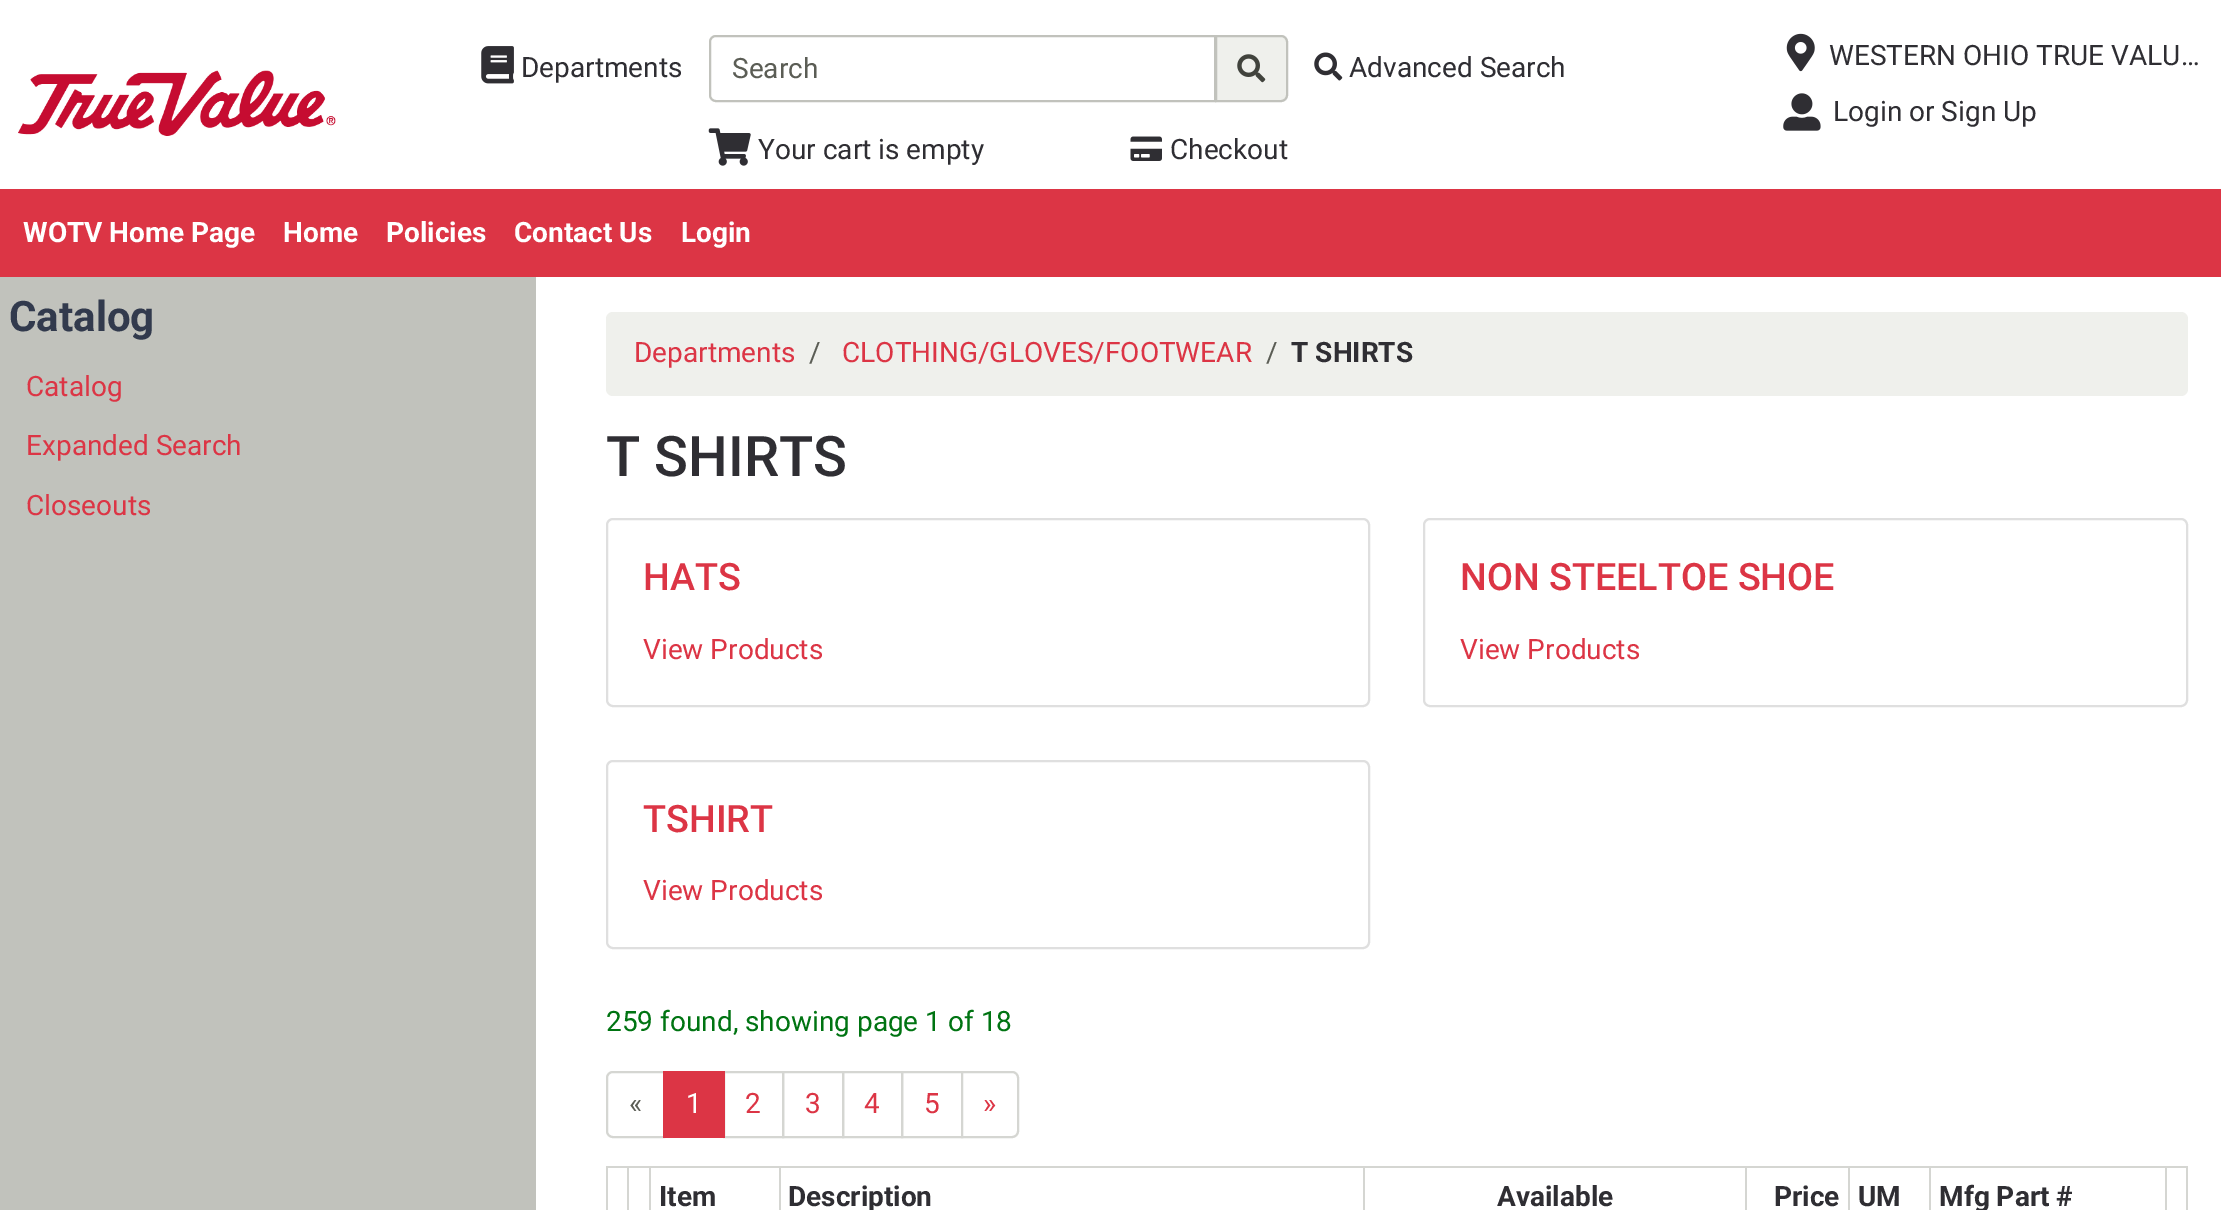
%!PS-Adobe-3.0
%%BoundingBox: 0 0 2221 1210
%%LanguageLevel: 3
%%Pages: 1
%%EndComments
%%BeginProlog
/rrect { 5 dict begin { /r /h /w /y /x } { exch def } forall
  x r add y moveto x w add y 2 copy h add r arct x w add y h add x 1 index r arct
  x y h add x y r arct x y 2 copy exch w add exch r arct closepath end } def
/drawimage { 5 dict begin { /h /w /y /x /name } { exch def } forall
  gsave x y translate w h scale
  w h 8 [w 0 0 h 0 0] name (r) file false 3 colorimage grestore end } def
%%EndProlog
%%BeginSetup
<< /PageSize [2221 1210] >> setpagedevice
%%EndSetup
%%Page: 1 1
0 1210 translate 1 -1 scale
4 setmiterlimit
1 setgray
0 0 2221 1210 rectfill
(images/1.raw) 18 70 318 66 drawimage
(images/2.raw) 481 46 33 38 drawimage
0.757 0.761 0.737 setrgbcolor
2 setlinewidth
newpath 716 36 moveto 1215 36 lineto 1215 101 lineto 716 101 lineto 712.5 101 710 98.5 710 95 curveto 710 42 lineto 710 38.5 712.5 36 716 36 curveto closepath stroke
0.937 0.941 0.925 setrgbcolor
newpath 1216 36 moveto 1281 36 lineto 1284.5 36 1287 38.5 1287 42 curveto 1287 95 lineto 1287 98.5 1284.5 101 1281 101 curveto 1216 101 lineto closepath gsave fill grestore
0.757 0.761 0.737 setrgbcolor
stroke
(images/3.raw) 1237 54 29 29 drawimage
(images/4.raw) 1314 52 29 29 drawimage
(images/5.raw) 708 128 43 38 drawimage
(images/6.raw) 1130 136 32 25 drawimage
(images/7.raw) 1786 33 29 39 drawimage
(images/8.raw) 1783 93 38 38 drawimage
0.863 0.208 0.271 setrgbcolor
0 189 2221 88 rectfill
0.757 0.761 0.737 setrgbcolor
0 277 536 933 rectfill
0.937 0.941 0.925 setrgbcolor
606 312 1582 84 7 rrect fill
0.875 setgray
607 519 762 187 6 rrect stroke
1424 519 763 187 6 rrect stroke
607 761 762 187 6 rrect stroke
0.835 0.839 0.824 setrgbcolor
newpath 613 1072 moveto 664 1072 lineto 664 1137 lineto 613 1137 lineto 609.5 1137 607 1134.5 607 1131 curveto 607 1078 lineto 607 1074.5 609.5 1072 613 1072 curveto closepath stroke
724 1072 59 65 rectstroke
0.863 0.208 0.271 setrgbcolor
663 1071 62 67 rectfill
0.835 0.839 0.824 setrgbcolor
783 1072 60 65 rectstroke
843 1072 59 65 rectstroke
902 1072 60 65 rectstroke
1 setgray
newpath 962 1072 moveto 1012 1072 lineto 1015.5 1072 1018 1074.5 1018 1078 curveto 1018 1131 lineto 1018 1134.5 1015.5 1137 1012 1137 curveto 962 1137 lineto closepath gsave fill grestore
0.835 0.839 0.824 setrgbcolor
stroke
2165 1166 23 2 rectfill
2165 1166 2 44 rectfill
1929 1166 238 2 rectfill
1929 1166 2 44 rectfill
1848 1166 82 2 rectfill
1848 1166 2 44 rectfill
1745 1166 105 2 rectfill
1745 1166 2 44 rectfill
1363 1166 384 2 rectfill
1363 1166 2 44 rectfill
779 1166 586 2 rectfill
779 1166 2 44 rectfill
649 1166 132 2 rectfill
649 1166 2 44 rectfill
627 1166 24 2 rectfill
627 1166 2 44 rectfill
606 1166 22 2 rectfill
606 1166 2 44 rectfill
2186 1166 2 44 rectfill
/Roboto-Regular [28 0 0 -28 0 0] selectfont
0.184 0.18 0.2 setrgbcolor
521 77 moveto (Departments) show
0.357 0.365 0.333 setrgbcolor
732 78 moveto (Search) show
0.184 0.18 0.2 setrgbcolor
1349 77 moveto (Advanced Search) show
758 159 moveto (Your cart is empty) show
1170 159 moveto (Checkout) show
1829 65 moveto (WESTERN OHIO TRUE VALU…) show
1833 121 moveto (Login or Sign Up) show
/Roboto-Bold [28 0 0 -28 0 0] selectfont
1 setgray
23 242 moveto (WOTV Home Page) show
283 242 moveto (Home) show
386 242 moveto (Policies) show
514 242 moveto (Contact Us) show
681 242 moveto (Login) show
/Roboto-Bold [42 0 0 -42 0 0] selectfont
0.196 0.227 0.302 setrgbcolor
9 331 moveto (Catalog) show
/Roboto-Regular [28 0 0 -28 0 0] selectfont
0.863 0.208 0.271 setrgbcolor
26 396 moveto (Catalog) show
26 455 moveto (Expanded Search) show
26 515 moveto (Closeouts) show
634 362 moveto (Departments) show
0.357 0.365 0.333 setrgbcolor
809 362 moveto (/) show
0.863 0.208 0.271 setrgbcolor
842 362 moveto (CLOTHING/GLOVES/FOOTWEAR) show
0.357 0.365 0.333 setrgbcolor
1266 362 moveto (/) show
/Roboto-Bold [28 0 0 -28 0 0] selectfont
0.184 0.18 0.2 setrgbcolor
1291 362 moveto (T SHIRTS) show
/Roboto-Medium [56 0 0 -56 0 0] selectfont
606 476 moveto (T SHIRTS) show
/Roboto-Medium [37.75 0 0 -37.75 0 0] selectfont
0.863 0.208 0.271 setrgbcolor
643 590 moveto (HATS) show
/Roboto-Regular [28 0 0 -28 0 0] selectfont
643 659 moveto (View Products) show
/Roboto-Medium [37.75 0 0 -37.75 0 0] selectfont
1460 590 moveto (NON STEELTOE SHOE) show
/Roboto-Regular [28 0 0 -28 0 0] selectfont
1460 659 moveto (View Products) show
/Roboto-Medium [37.75 0 0 -37.75 0 0] selectfont
643 832 moveto (TSHIRT) show
/Roboto-Regular [28 0 0 -28 0 0] selectfont
643 900 moveto (View Products) show
0 0.455 0.071 setrgbcolor
606 1031 moveto (259 found, showing page 1 of 18) show
0.357 0.365 0.333 setrgbcolor
629 1113 moveto («) show
1 setgray
686 1113 moveto (1) show
0.863 0.208 0.271 setrgbcolor
745 1113 moveto (2) show
805 1113 moveto (3) show
864 1113 moveto (4) show
924 1113 moveto (5) show
983 1113 moveto (») show
/Roboto-Bold [28 0 0 -28 0 0] selectfont
0.184 0.18 0.2 setrgbcolor
659 1206 moveto (Item) show
788 1206 moveto (Description) show
1497 1206 moveto (Available) show
1774 1206 moveto (Price) show
1858 1206 moveto (UM) show
1939 1206 moveto (Mfg Part #) show
showpage
%%EOF
